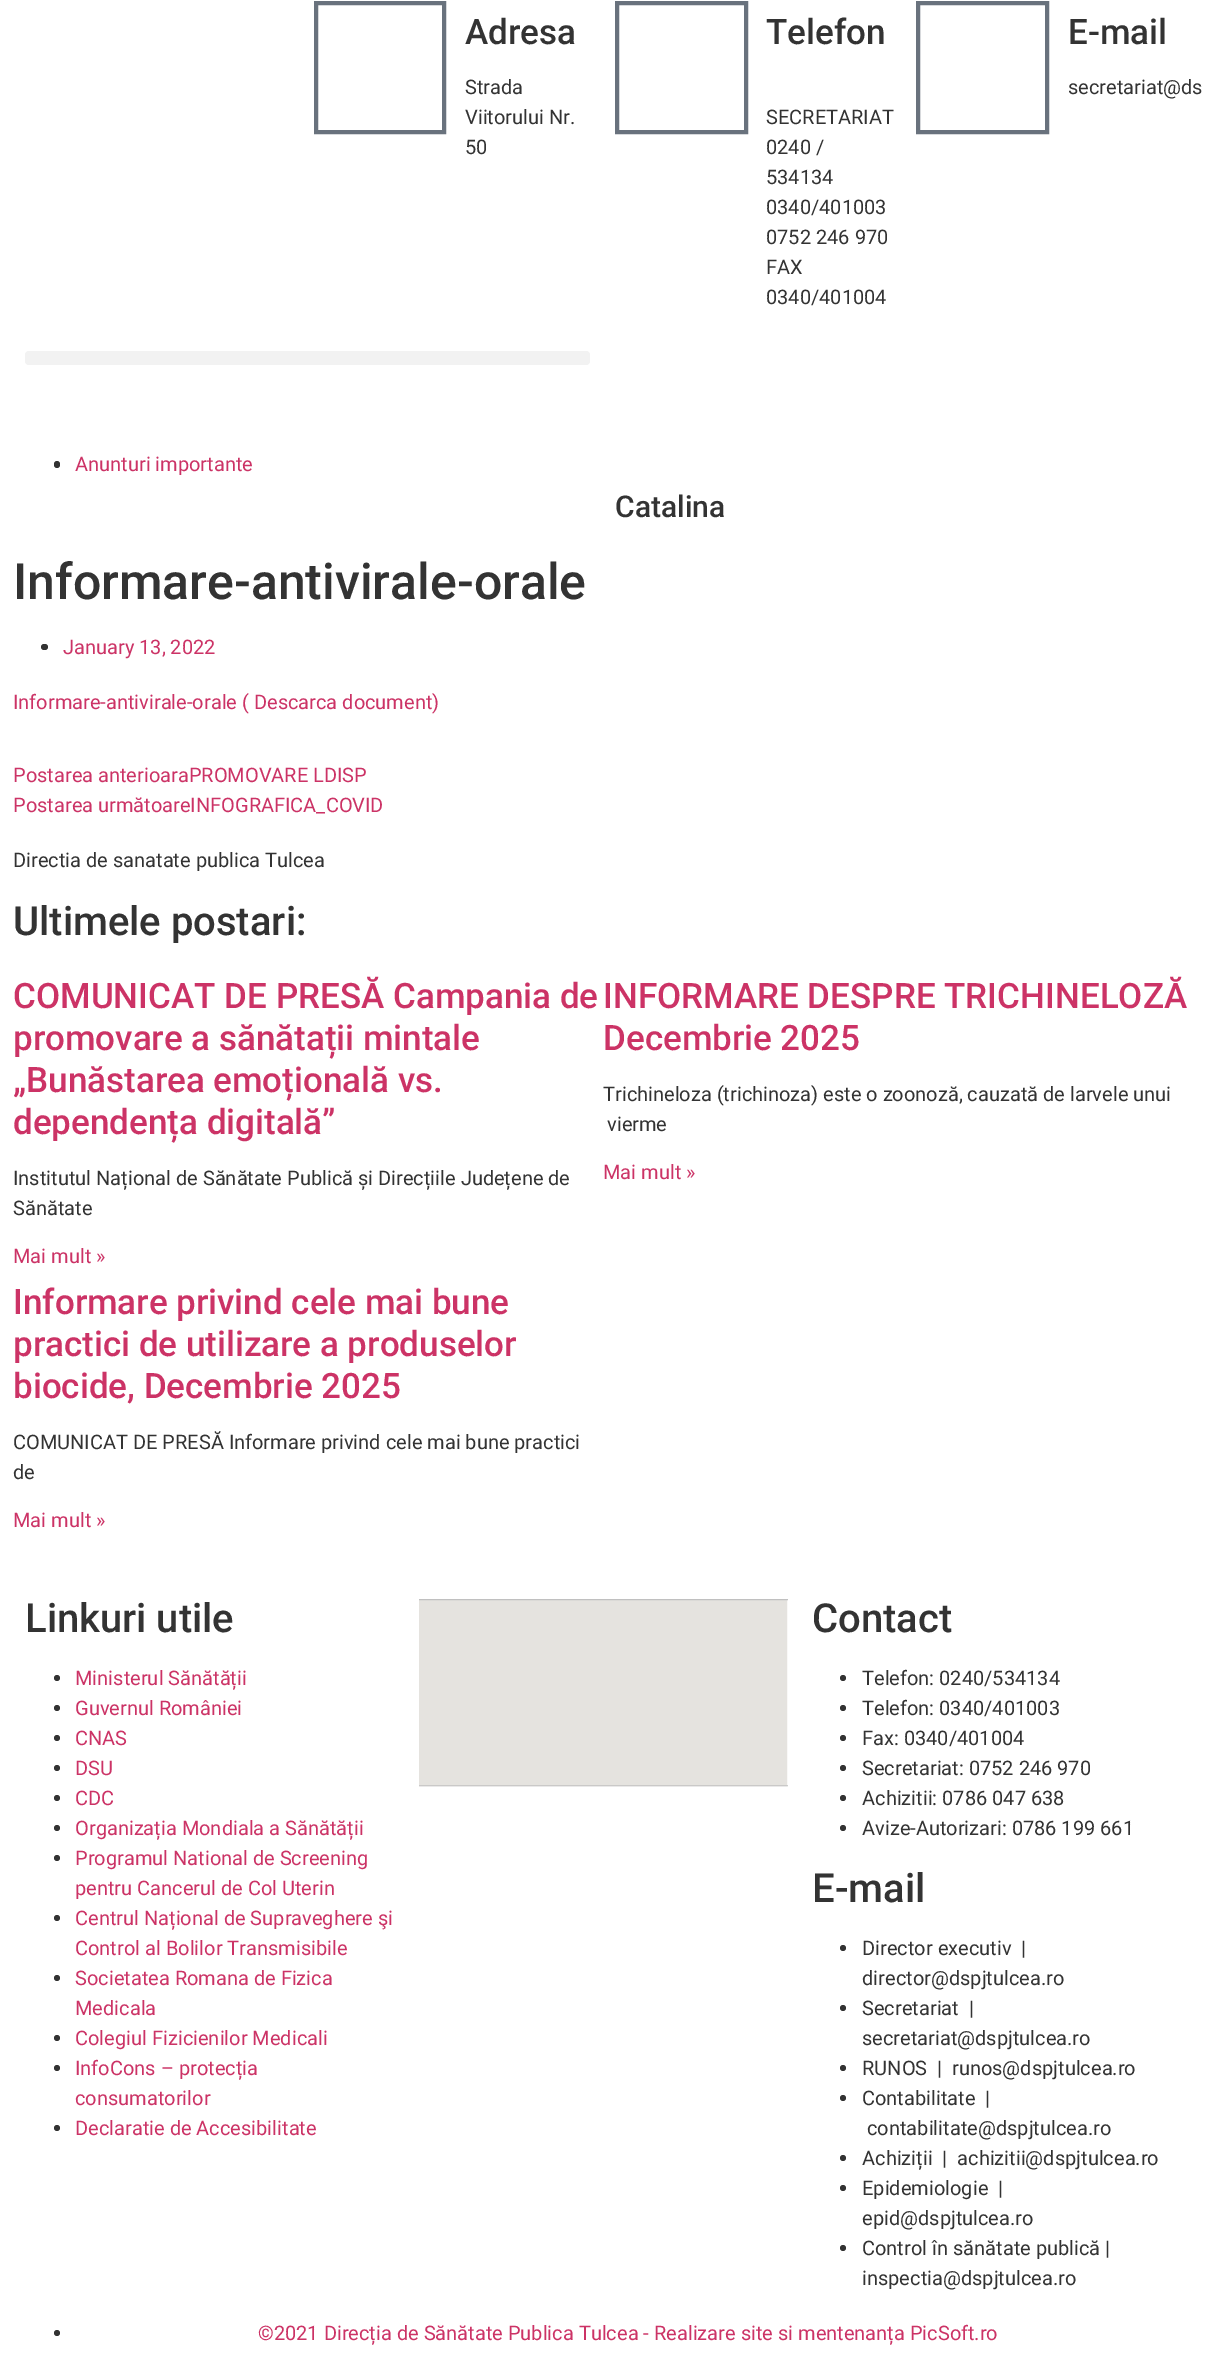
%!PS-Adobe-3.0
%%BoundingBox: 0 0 1205 2373
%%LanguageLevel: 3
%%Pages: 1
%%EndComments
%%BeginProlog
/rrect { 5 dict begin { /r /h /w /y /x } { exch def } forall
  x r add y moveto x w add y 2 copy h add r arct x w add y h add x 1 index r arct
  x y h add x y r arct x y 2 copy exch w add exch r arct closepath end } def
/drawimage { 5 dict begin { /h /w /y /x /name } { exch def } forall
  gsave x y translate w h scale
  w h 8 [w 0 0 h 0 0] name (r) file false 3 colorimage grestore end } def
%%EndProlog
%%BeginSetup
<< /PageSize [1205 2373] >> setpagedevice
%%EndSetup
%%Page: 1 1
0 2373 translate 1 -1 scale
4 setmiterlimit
1 setgray
0 0 1205 2373 rectfill
0.412 0.447 0.49 setrgbcolor
4 setlinewidth
316 3 128 129 rectstroke
617 3 129 129 rectstroke
918 3 129 129 rectstroke
0.949 setgray
25 351 565 14 4 rrect fill
0.2 setgray
54 461 6 7 3 rrect fill
41 644 7 6 3 rrect fill
newpath 57 1678 3 0 360 arc closepath fill
newpath 57 1708 3 0 360 arc closepath fill
newpath 57 1738 3 0 360 arc closepath fill
newpath 57 1768 3 0 360 arc closepath fill
newpath 57 1798 3 0 360 arc closepath fill
newpath 57 1828 3 0 360 arc closepath fill
newpath 57 1858 3 0 360 arc closepath fill
newpath 57 1918 3 0 360 arc closepath fill
newpath 57 1978 3 0 360 arc closepath fill
newpath 57 2038 3 0 360 arc closepath fill
newpath 57 2068 3 0 360 arc closepath fill
newpath 57 2128 3 0 360 arc closepath fill
(images/1.raw) 419 1599 369 188 drawimage
newpath 843 1678 3 0 360 arc closepath fill
newpath 843 1708 3 0 360 arc closepath fill
newpath 843 1738 3 0 360 arc closepath fill
newpath 843 1768 3 0 360 arc closepath fill
newpath 843 1798 3 0 360 arc closepath fill
newpath 843 1828 3 0 360 arc closepath fill
newpath 843 1948 3 0 360 arc closepath fill
newpath 843 2008 3 0 360 arc closepath fill
newpath 843 2068 3 0 360 arc closepath fill
newpath 843 2098 3 0 360 arc closepath fill
newpath 843 2158 3 0 360 arc closepath fill
newpath 843 2188 3 0 360 arc closepath fill
newpath 843 2248 3 0 360 arc closepath fill
newpath 57 2333 3 0 360 arc closepath fill
/Roboto-Medium [35 0 0 -35 0 0] selectfont
465 44 moveto (Adresa) show
/Roboto-Regular [20 0 0 -20 0 0] selectfont
465 94 moveto (Strada) show
465 124 moveto (Viitorului Nr.) show
465 154 moveto (50) show
/Roboto-Medium [35 0 0 -35 0 0] selectfont
766 44 moveto (Telefon) show
/Roboto-Regular [20 0 0 -20 0 0] selectfont
766 124 moveto (SECRETARIAT) show
766 154 moveto (0240 /) show
766 184 moveto (534134) show
766 214 moveto (0340/401003) show
766 244 moveto (0752 246 970) show
766 274 moveto (FAX) show
766 304 moveto (0340/401004) show
/Roboto-Medium [35 0 0 -35 0 0] selectfont
1068 44 moveto (E-mail) show
/Roboto-Regular [20 0 0 -20 0 0] selectfont
1068 94 moveto (secretariat@ds) show
0.8 0.2 0.4 setrgbcolor
75 471 moveto (Anunturi importante) show
/Roboto-Medium [30 0 0 -30 0 0] selectfont
0.2 setgray
615 517 moveto (Catalina) show
/Roboto-Medium [50 0 0 -50 0 0] selectfont
13 599 moveto (Informare-antivirale-orale) show
/Roboto-Regular [20 0 0 -20 0 0] selectfont
0.8 0.2 0.4 setrgbcolor
63 654 moveto (January 13, 2022) show
13 709 moveto (Informare-antivirale-orale \( Descarca document\)) show
13 782 moveto (Postarea anterioaraPROMOVARE LDISP) show
13 812 moveto (Postarea următoareINFOGRAFICA_COVID) show
0.2 setgray
13 867 moveto (Directia de sanatate publica Tulcea) show
/Roboto-Medium [40 0 0 -40 0 0] selectfont
13 935 moveto (Ultimele postari:) show
/Roboto-Medium [35 0 0 -35 0 0] selectfont
0.8 0.2 0.4 setrgbcolor
13 1008 moveto (COMUNICAT DE PRESĂ Campania de) show
13 1050 moveto (promovare a sănătații mintale) show
13 1092 moveto („Bunăstarea emoțională vs.) show
13 1134 moveto (dependența digitală”) show
/Roboto-Regular [20 0 0 -20 0 0] selectfont
0.2 setgray
13 1185 moveto (Institutul Național de Sănătate Publică și Direcțiile Județene de) show
13 1215 moveto (Sănătate) show
0.8 0.2 0.4 setrgbcolor
13 1263 moveto (Mai mult ») show
/Roboto-Medium [35 0 0 -35 0 0] selectfont
603 1008 moveto (INFORMARE DESPRE TRICHINELOZĂ) show
603 1050 moveto (Decembrie 2025) show
/Roboto-Regular [20 0 0 -20 0 0] selectfont
0.2 setgray
603 1101 moveto (Trichineloza \(trichinoza\) este o zoonoză, cauzată de larvele unui) show
607 1131 moveto (vierme) show
0.8 0.2 0.4 setrgbcolor
603 1179 moveto (Mai mult ») show
/Roboto-Medium [35 0 0 -35 0 0] selectfont
13 1314 moveto (Informare privind cele mai bune) show
13 1356 moveto (practici de utilizare a produselor) show
13 1398 moveto (biocide, Decembrie 2025) show
/Roboto-Regular [20 0 0 -20 0 0] selectfont
0.2 setgray
13 1449 moveto (COMUNICAT DE PRESĂ Informare privind cele mai bune practici) show
13 1479 moveto (de) show
0.8 0.2 0.4 setrgbcolor
13 1527 moveto (Mai mult ») show
/Roboto-Medium [40 0 0 -40 0 0] selectfont
0.2 setgray
25 1632 moveto (Linkuri utile) show
/Roboto-Regular [20 0 0 -20 0 0] selectfont
0.8 0.2 0.4 setrgbcolor
75 1685 moveto (Ministerul Sănătății) show
75 1715 moveto (Guvernul României) show
75 1745 moveto (CNAS) show
75 1775 moveto (DSU) show
75 1805 moveto (CDC) show
75 1835 moveto (Organizația Mondiala a Sănătății) show
75 1865 moveto (Programul National de Screening) show
75 1895 moveto (pentru Cancerul de Col Uterin) show
75 1925 moveto (Centrul Național de Supraveghere şi) show
75 1955 moveto (Control al Bolilor Transmisibile) show
75 1985 moveto (Societatea Romana de Fizica) show
75 2015 moveto (Medicala) show
75 2045 moveto (Colegiul Fizicienilor Medicali) show
75 2075 moveto (InfoCons – protecția) show
75 2105 moveto (consumatorilor) show
75 2135 moveto (Declaratie de Accesibilitate) show
/Roboto-Medium [40 0 0 -40 0 0] selectfont
0.2 setgray
812 1632 moveto (Contact) show
/Roboto-Regular [20 0 0 -20 0 0] selectfont
862 1685 moveto (Telefon: 0240/534134) show
862 1715 moveto (Telefon: 0340/401003) show
862 1745 moveto (Fax: 0340/401004) show
862 1775 moveto (Secretariat: 0752 246 970) show
862 1805 moveto (Achizitii: 0786 047 638) show
862 1835 moveto (Avize-Autorizari: 0786 199 661) show
/Roboto-Medium [40 0 0 -40 0 0] selectfont
812 1902 moveto (E-mail) show
/Roboto-Regular [20 0 0 -20 0 0] selectfont
862 1955 moveto (Director executiv  |) show
862 1985 moveto (director@dspjtulcea.ro) show
862 2015 moveto (Secretariat  |) show
862 2045 moveto (secretariat@dspjtulcea.ro) show
862 2075 moveto (RUNOS  |  runos@dspjtulcea.ro) show
862 2105 moveto (Contabilitate  |) show
867 2135 moveto (contabilitate@dspjtulcea.ro) show
862 2165 moveto (Achiziții  |  achizitii@dspjtulcea.ro) show
862 2195 moveto (Epidemiologie  |) show
862 2225 moveto (epid@dspjtulcea.ro) show
862 2255 moveto (Control în sănătate publică |) show
862 2285 moveto (inspectia@dspjtulcea.ro) show
0.8 0.2 0.4 setrgbcolor
258 2340 moveto (©2021 Direcția de Sănătate Publica Tulcea - Realizare site si mentenanța PicSoft.ro) show
showpage
%%EOF
